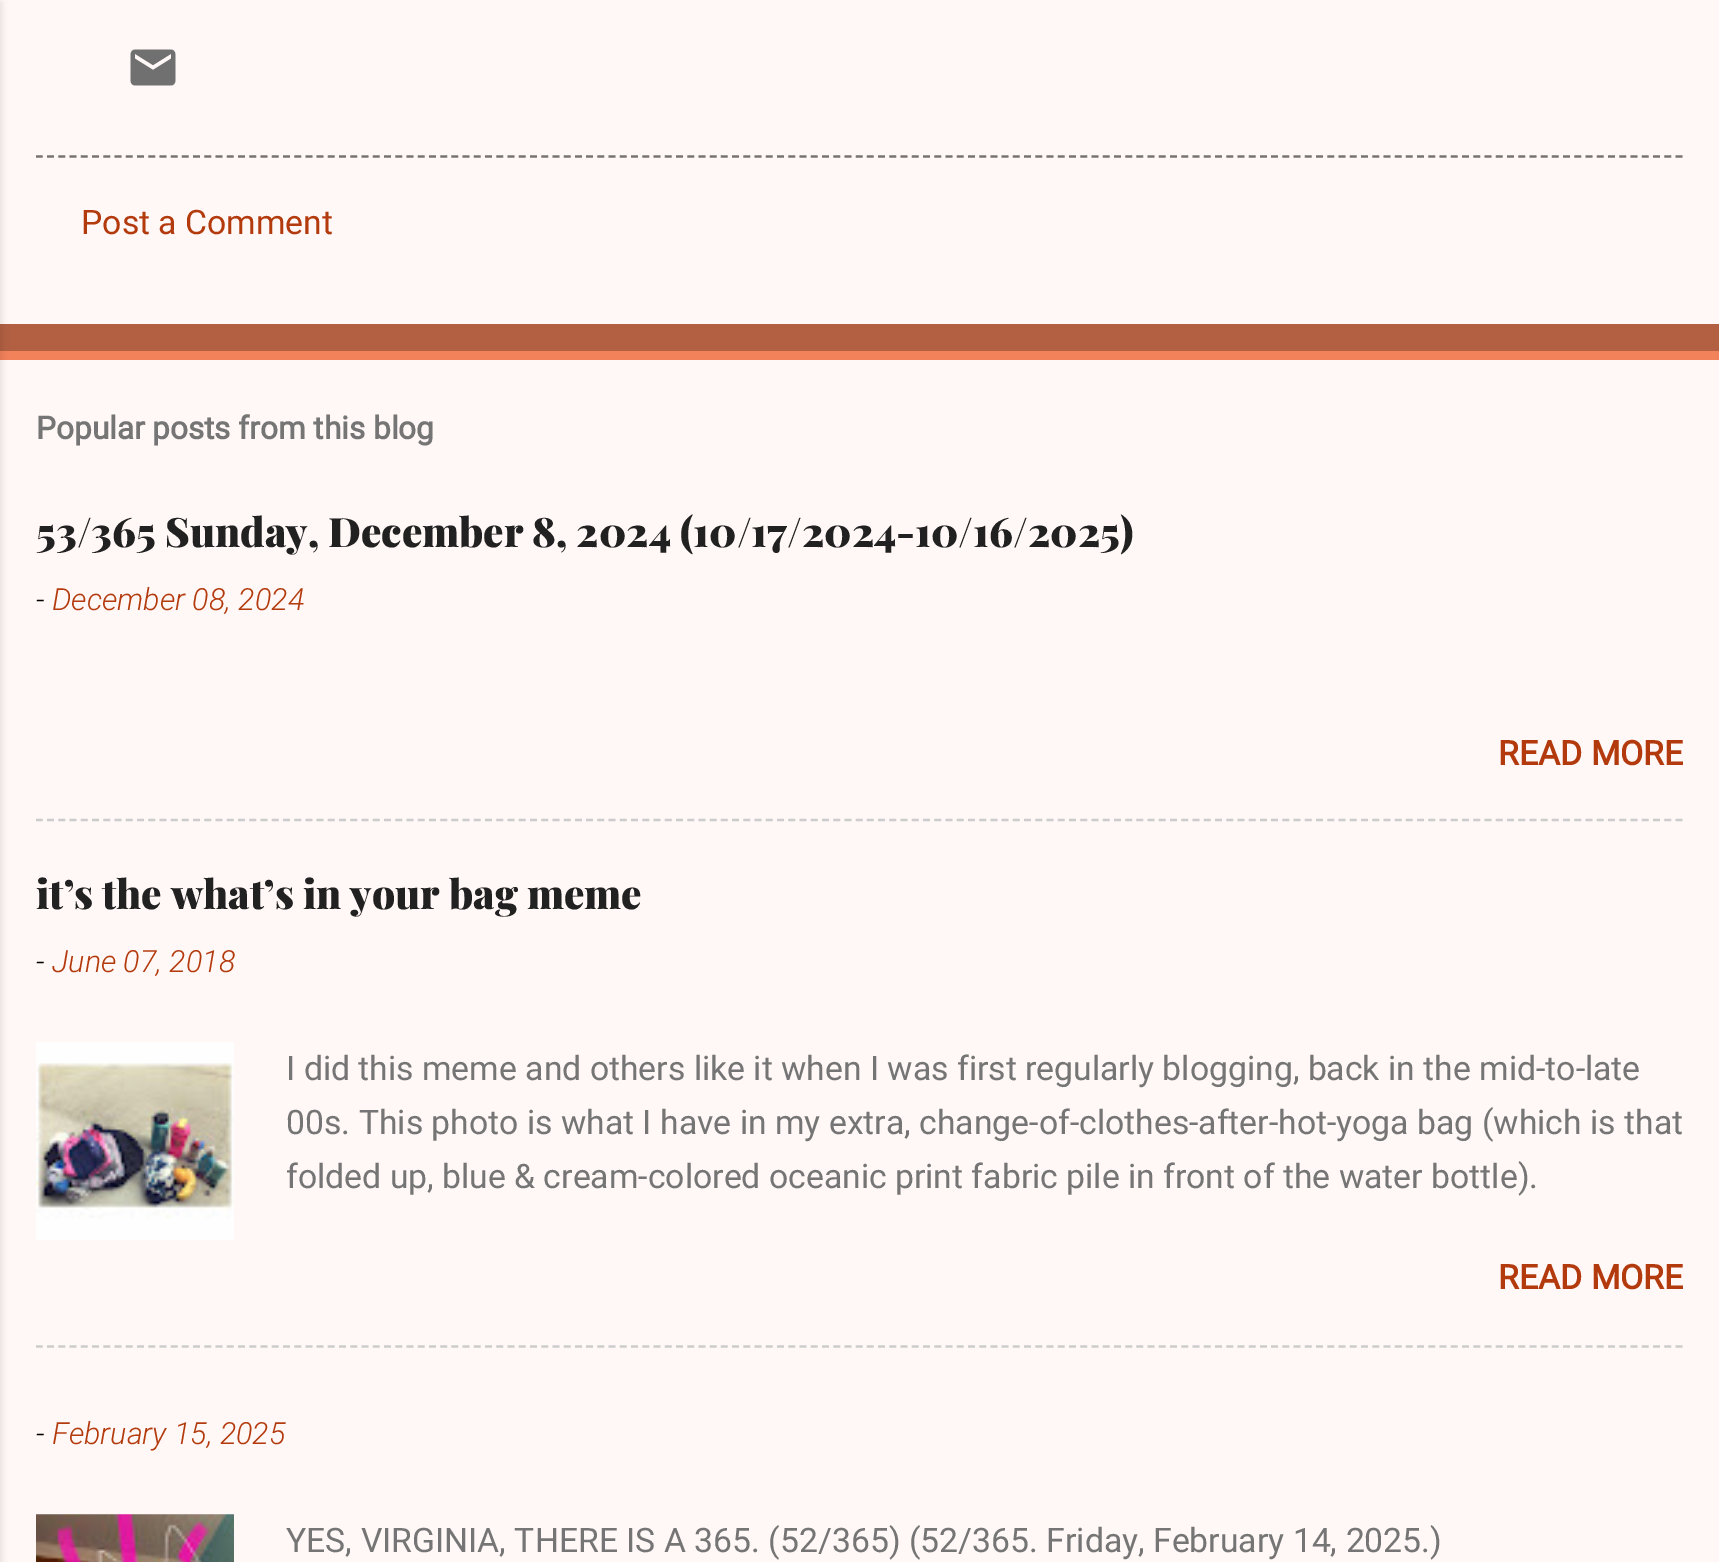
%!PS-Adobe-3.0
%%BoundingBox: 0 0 1719 1562
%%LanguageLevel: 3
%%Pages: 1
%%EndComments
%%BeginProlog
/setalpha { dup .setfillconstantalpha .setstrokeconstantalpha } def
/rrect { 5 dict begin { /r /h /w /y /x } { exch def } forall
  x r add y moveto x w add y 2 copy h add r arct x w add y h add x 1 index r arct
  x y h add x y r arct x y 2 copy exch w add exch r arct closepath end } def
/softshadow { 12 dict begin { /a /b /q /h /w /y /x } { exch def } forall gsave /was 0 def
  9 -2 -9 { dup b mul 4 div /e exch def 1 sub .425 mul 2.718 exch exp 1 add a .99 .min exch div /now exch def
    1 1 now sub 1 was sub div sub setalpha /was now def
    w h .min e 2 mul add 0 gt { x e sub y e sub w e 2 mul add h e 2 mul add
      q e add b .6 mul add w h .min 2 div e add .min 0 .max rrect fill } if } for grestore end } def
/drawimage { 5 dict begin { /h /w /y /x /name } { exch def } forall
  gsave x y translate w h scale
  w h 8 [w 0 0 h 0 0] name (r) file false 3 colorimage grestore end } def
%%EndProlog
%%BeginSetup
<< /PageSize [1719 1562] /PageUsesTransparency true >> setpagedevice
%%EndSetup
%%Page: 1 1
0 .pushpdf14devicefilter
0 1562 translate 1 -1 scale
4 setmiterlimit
0.949 0.51 0.353 setrgbcolor
0 0 1719 1562 rectfill
1 0.973 0.965 setrgbcolor
0 0 1719 324 rectfill
0 360 1719 1202 rectfill
0.698 0.373 0.259 setrgbcolor
0 324 1719 27 rectfill
0 setgray
-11 2 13 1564 0 3.5 0.1 softshadow
(images/1.raw) 130 49 46 37 drawimage
0.459 0.447 0.443 setrgbcolor
2.2 setlinewidth
[6.75 4.48] 0 setdash
newpath 36 156.5 moveto 1683 156.5 lineto stroke
0.8 setgray
newpath 36 820 moveto 1683 820 lineto stroke
(images/2.raw) 36 1042 198 198 drawimage
newpath 36 1346.5 moveto 1683 1346.5 lineto stroke
(images/3.raw) 36 1514 198 48 drawimage
/Roboto-Regular [33.75 0 0 -33.75 0 0] selectfont
0.702 0.227 0.051 setrgbcolor
81 234 moveto (Post a Comment) show
/Roboto-Bold [31.5 0 0 -31.5 0 0] selectfont
0.459 setgray
36 439 moveto (Popular posts from this blog) show
/PlayfairDisplay-Black [40.5 0 0 -40.5 0 0] selectfont
0.129 setgray
36 547 moveto (53/365 Sunday, December 8, 2024 \(10/17/2024-10/16/2025\)) show
/Roboto-LightItalic [30.5 0 0 -30.5 0 0] selectfont
0 setgray
36 610 moveto (-) show
0.702 0.227 0.051 setrgbcolor
52 610 moveto (December 08, 2024) show
/Roboto-Bold [33.75 0 0 -33.75 0 0] selectfont
1498 765 moveto (READ MORE) show
/PlayfairDisplay-Black [40.5 0 0 -40.5 0 0] selectfont
0.129 setgray
36 909 moveto (it’s the what’s in your bag meme) show
/Roboto-LightItalic [30.5 0 0 -30.5 0 0] selectfont
0 setgray
36 972 moveto (-) show
0.702 0.227 0.051 setrgbcolor
52 972 moveto (June 07, 2018) show
/Roboto-Regular [33.75 0 0 -33.75 0 0] selectfont
0.459 setgray
286 1080 moveto (I did this meme and others like it when I was first regularly blogging, back in the mid-to-late) show
286 1134 moveto (00s. This photo is what I have in my extra, change-of-clothes-after-hot-yoga bag \(which is that) show
286 1188 moveto (folded up, blue & cream-colored oceanic print fabric pile in front of the water bottle\).) show
/Roboto-Bold [33.75 0 0 -33.75 0 0] selectfont
0.702 0.227 0.051 setrgbcolor
1498 1289 moveto (READ MORE) show
/Roboto-LightItalic [30.5 0 0 -30.5 0 0] selectfont
0 setgray
36 1444 moveto (-) show
0.702 0.227 0.051 setrgbcolor
52 1444 moveto (February 15, 2025) show
/Roboto-Regular [33.75 0 0 -33.75 0 0] selectfont
0.459 setgray
286 1552 moveto (YES, VIRGINIA, THERE IS A 365. \(52/365\) \(52/365. Friday, February 14, 2025.\)) show
.poppdf14devicefilter showpage
%%EOF
